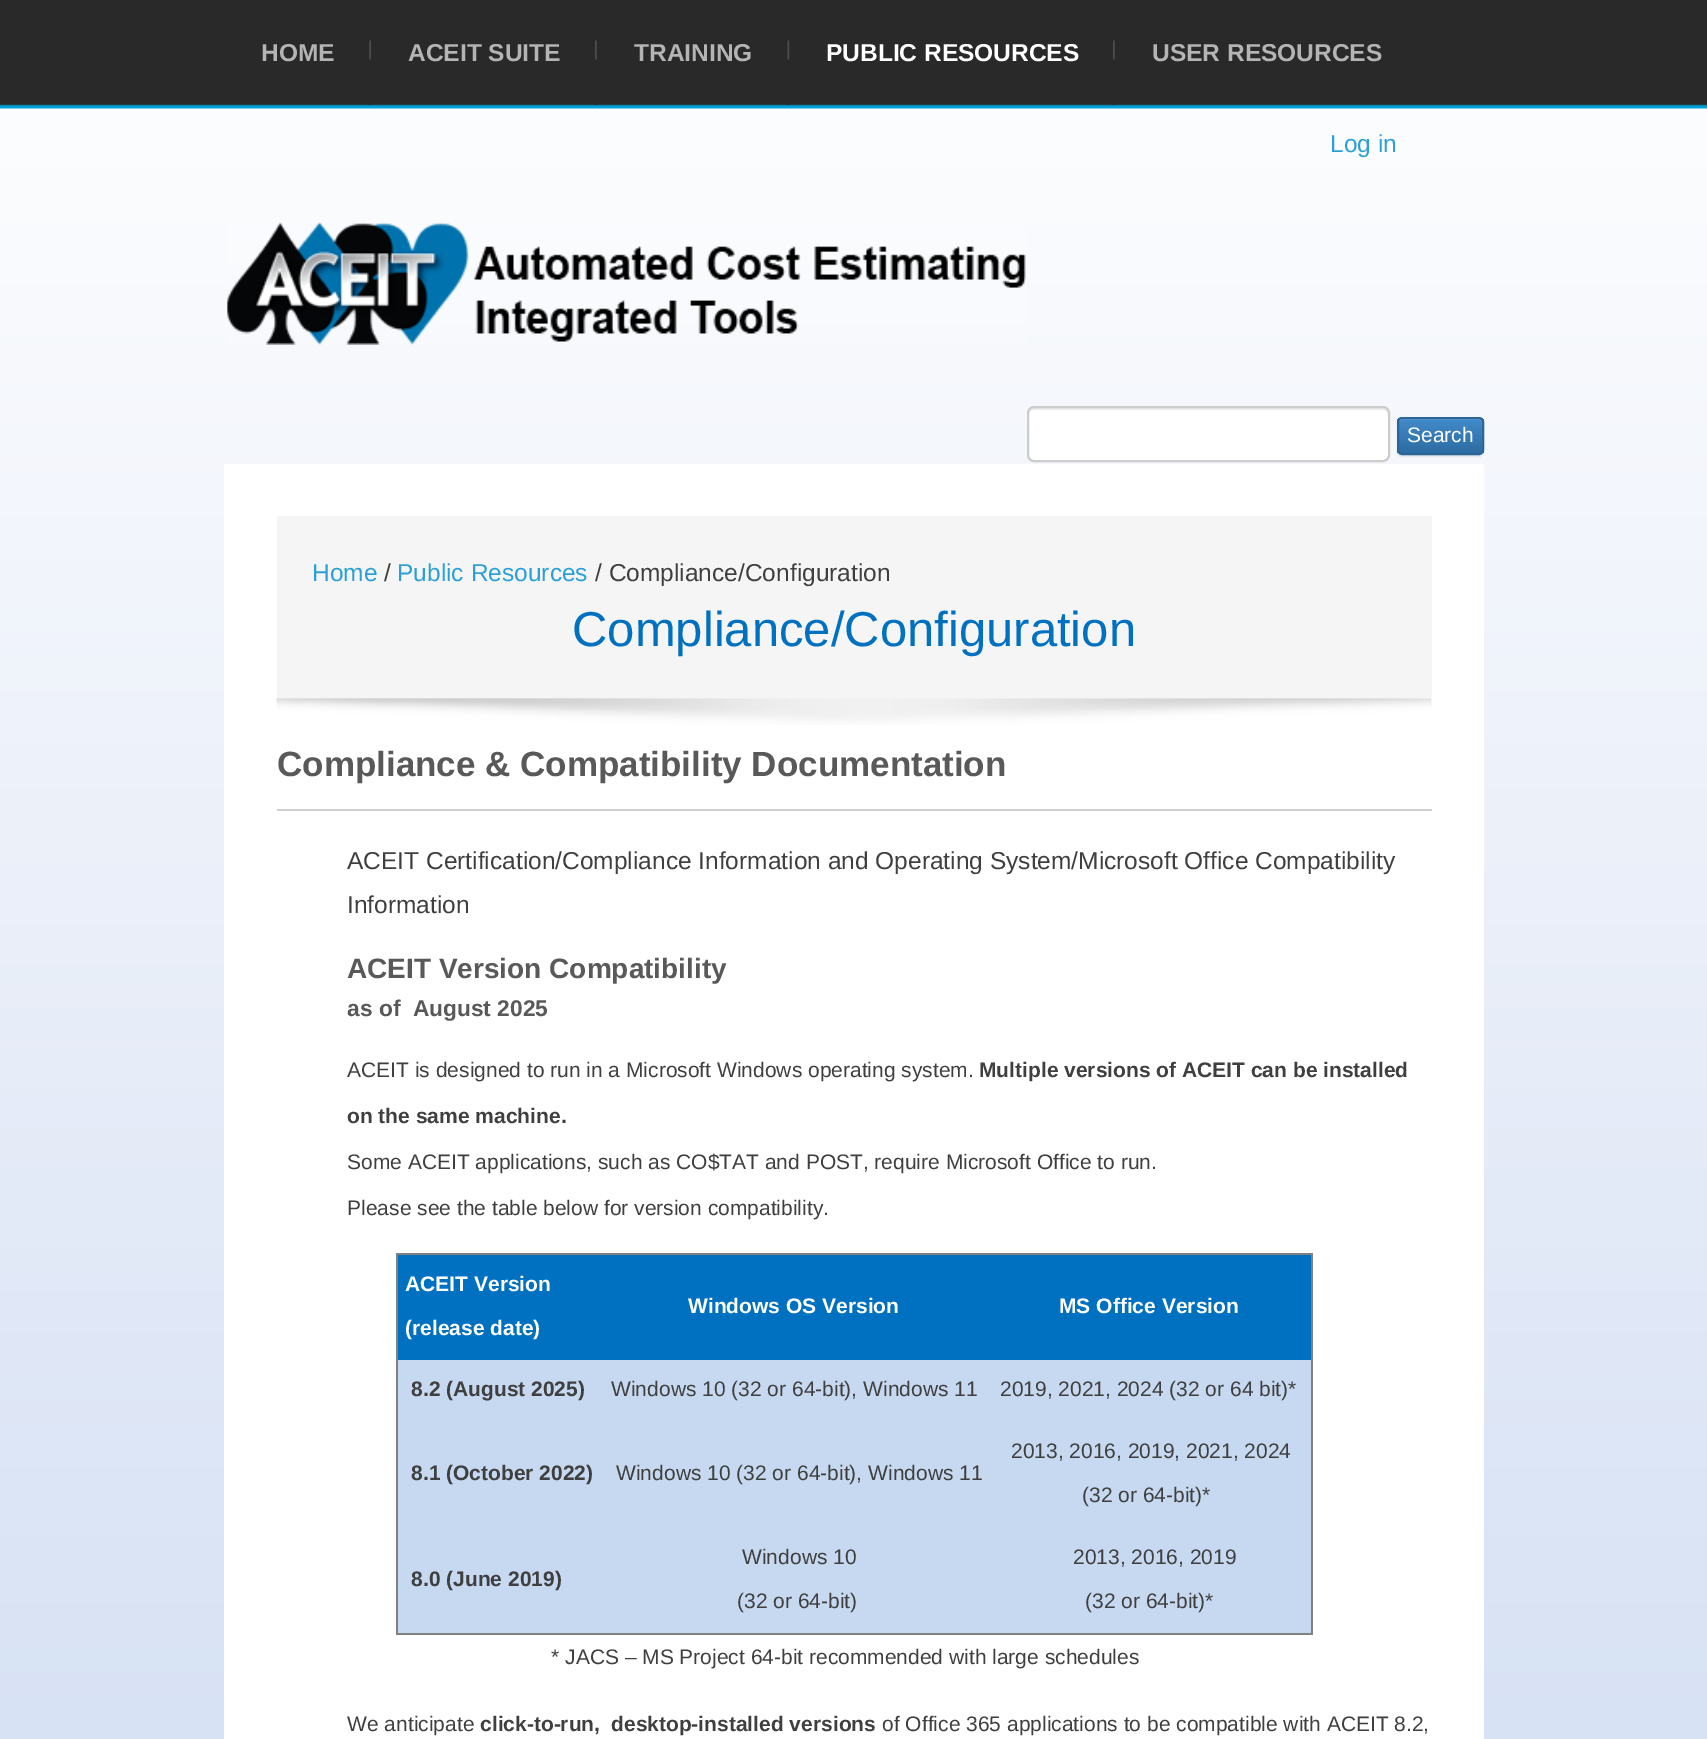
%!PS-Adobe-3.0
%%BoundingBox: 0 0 1707 1739
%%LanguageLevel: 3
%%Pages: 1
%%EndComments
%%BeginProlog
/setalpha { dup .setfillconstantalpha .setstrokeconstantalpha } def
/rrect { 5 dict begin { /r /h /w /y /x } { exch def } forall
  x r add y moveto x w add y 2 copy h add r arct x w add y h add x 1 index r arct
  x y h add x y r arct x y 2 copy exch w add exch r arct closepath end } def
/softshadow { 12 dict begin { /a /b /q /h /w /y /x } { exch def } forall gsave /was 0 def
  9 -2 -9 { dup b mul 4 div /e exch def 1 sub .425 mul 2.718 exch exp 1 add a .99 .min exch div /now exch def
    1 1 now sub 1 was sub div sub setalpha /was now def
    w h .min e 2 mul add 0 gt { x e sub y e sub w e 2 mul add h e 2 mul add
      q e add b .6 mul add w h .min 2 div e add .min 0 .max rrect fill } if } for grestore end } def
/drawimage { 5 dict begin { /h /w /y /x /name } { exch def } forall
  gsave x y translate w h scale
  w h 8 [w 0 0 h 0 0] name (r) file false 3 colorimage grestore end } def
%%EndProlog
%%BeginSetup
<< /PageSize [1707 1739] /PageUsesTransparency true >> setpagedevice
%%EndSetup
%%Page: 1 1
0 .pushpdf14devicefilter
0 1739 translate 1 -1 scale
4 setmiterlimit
1 setgray
0 0 1707 1739 rectfill
gsave newpath 0 109 moveto 1707 109 lineto 1707 1739 lineto 0 1739 lineto closepath clip newpath
<< /ShadingType 2 /ColorSpace /DeviceRGB /Coords [854 0 854 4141] /Extend [true true] /Function << /FunctionType 2 /Domain [0 1] /C0 [1 1 1] /C1 [0.627 0.725 0.898] /N 1 >> >> shfill grestore
(images/1.raw) 0 0 1707 109 drawimage
(images/2.raw) 369 40 2 65 drawimage
(images/3.raw) 595 40 2 65 drawimage
(images/4.raw) 787 40 3 65 drawimage
(images/3.raw) 1113 40 2 65 drawimage
(images/5.raw) 227 222 799 123 drawimage
1027 406 363 56 7 rrect fill
0.925 setgray
newpath 1034 410 moveto 1382 410 lineto 1385 410 1388 412 1388 415 curveto 1388 412 1387 408 1383 408 curveto 1034 408 lineto 1030 408 1029 412 1029 415 curveto 1029 412 1031 410 1034 410 curveto closepath fill
0.8 setgray
2 setlinewidth
1028 407 361 54 6 rrect stroke
0 setgray
1397 418 87 39 5 1 0.07 softshadow
gsave
1397 417 87 38 5 rrect clip newpath
gsave newpath 1397 418 moveto 1484 418 lineto 1484 453 lineto 1397 453 lineto closepath clip newpath
<< /ShadingType 2 /ColorSpace /DeviceRGB /Coords [1440 418 1440 453] /Extend [true true] /Function << /FunctionType 2 /Domain [0 1] /C0 [0.259 0.545 0.792] /C1 [0.176 0.424 0.635] /N 1 >> >> shfill grestore
grestore
0.15 setalpha
1 setgray
newpath 1402 420 moveto 1479 420 lineto 1481 420 1482 422 1482 424 curveto 1482 415 1473 418 1465 418 curveto 1415 418 lineto 1407 418 1398 415 1398 424 curveto 1398 422 1400 420 1402 420 curveto closepath fill
1 setalpha
0.169 0.4 0.604 setrgbcolor
1398 418 85 36 4 rrect stroke
1 setgray
224 464 1260 1275 rectfill
(images/6.raw) 276 698 1156 27 drawimage
0.961 setgray
277 516 1155 182 rectfill
0.812 setgray
277 809 1155 2 rectfill
0.502 setgray
396 1253 917 2 rectfill
1311 1253 2 382 rectfill
396 1633 917 2 rectfill
396 1253 2 382 rectfill
0 0.439 0.753 setrgbcolor
398 1255 913 105 rectfill
0.776 0.851 0.941 setrgbcolor
398 1360 913 61 rectfill
398 1421 913 107 rectfill
398 1528 913 105 rectfill
/LiberationSans-Bold [24.5 0 0 -24.5 0 0] selectfont
0.71 0.706 0.706 setrgbcolor
261 61 moveto (HOME) show
408 61 moveto (ACEIT SUITE) show
634 61 moveto (TRAINING) show
1 setgray
826 61 moveto (PUBLIC RESOURCES) show
0.71 0.706 0.706 setrgbcolor
1152 61 moveto (USER RESOURCES) show
/LiberationSans-Regular [24.5 0 0 -24.5 0 0] selectfont
0.169 0.627 0.843 setrgbcolor
1330 152 moveto (Log in) show
/LiberationSans-Regular [21 0 0 -21 0 0] selectfont
1 setgray
1407 442 moveto (Search) show
/LiberationSans-Regular [24.5 0 0 -24.5 0 0] selectfont
0.169 0.627 0.843 setrgbcolor
312 581 moveto (Home) show
0.247 setgray
384 581 moveto (/) show
0.169 0.627 0.843 setrgbcolor
397 581 moveto (Public Resources) show
0.247 setgray
595 581 moveto (/ Compliance/Configuration) show
/LiberationSans-Regular [49 0 0 -49 0 0] selectfont
0 0.439 0.753 setrgbcolor
572 646 moveto (Compliance/Configuration) show
/LiberationSans-Bold [35 0 0 -35 0 0] selectfont
0.349 setgray
277 776 moveto (Compliance & Compatibility Documentation) show
/LiberationSans-Regular [24.5 0 0 -24.5 0 0] selectfont
0.247 setgray
347 869 moveto (ACEIT Certification/Compliance Information and Operating System/Microsoft Office Compatibility) show
347 913 moveto (Information) show
/LiberationSans-Bold [28 0 0 -28 0 0] selectfont
0.349 setgray
347 978 moveto (ACEIT Version Compatibility) show
/LiberationSans-Bold [22.75 0 0 -22.75 0 0] selectfont
347 1016 moveto (as of  August 2025) show
/LiberationSans-Regular [21 0 0 -21 0 0] selectfont
0.247 setgray
347 1077 moveto (ACEIT is designed to run in a Microsoft Windows operating system.) show
/LiberationSans-Bold [21 0 0 -21 0 0] selectfont
979 1077 moveto (Multiple versions of ACEIT can be installed) show
347 1123 moveto (on the same machine.) show
/LiberationSans-Regular [21 0 0 -21 0 0] selectfont
347 1169 moveto (Some ACEIT applications, such as CO$TAT and POST, require Microsoft Office to run.) show
347 1215 moveto (Please see the table below for version compatibility.) show
/LiberationSans-Bold [21 0 0 -21 0 0] selectfont
1 setgray
405 1291 moveto (ACEIT Version) show
405 1335 moveto (\(release date\)) show
688 1313 moveto (Windows OS Version) show
1059 1313 moveto (MS Office Version) show
0.247 setgray
411 1396 moveto (8.2 \(August 2025\)) show
/LiberationSans-Regular [21 0 0 -21 0 0] selectfont
611 1396 moveto (Windows 10 \(32 or 64-bit\), Windows 11) show
1000 1396 moveto (2019, 2021, 2024 \(32 or 64 bit\)*) show
/LiberationSans-Bold [21 0 0 -21 0 0] selectfont
411 1480 moveto (8.1 \(October 2022\)) show
/LiberationSans-Regular [21 0 0 -21 0 0] selectfont
616 1480 moveto (Windows 10 \(32 or 64-bit\), Windows 11) show
1011 1458 moveto (2013, 2016, 2019, 2021, 2024) show
1082 1502 moveto (\(32 or 64-bit\)*) show
/LiberationSans-Bold [21 0 0 -21 0 0] selectfont
411 1586 moveto (8.0 \(June 2019\)) show
/LiberationSans-Regular [21 0 0 -21 0 0] selectfont
742 1564 moveto (Windows 10) show
737 1608 moveto (\(32 or 64-bit\)) show
1073 1564 moveto (2013, 2016, 2019) show
1085 1608 moveto (\(32 or 64-bit\)*) show
551 1664 moveto (* JACS – MS Project 64-bit recommended with large schedules) show
347 1731 moveto (We anticipate) show
/LiberationSans-Bold [21 0 0 -21 0 0] selectfont
480 1731 moveto (click-to-run,) show
611 1731 moveto (desktop-installed versions) show
/LiberationSans-Regular [21 0 0 -21 0 0] selectfont
882 1731 moveto (of Office 365 applications to be compatible with ACEIT 8.2,) show
.poppdf14devicefilter showpage
%%EOF
